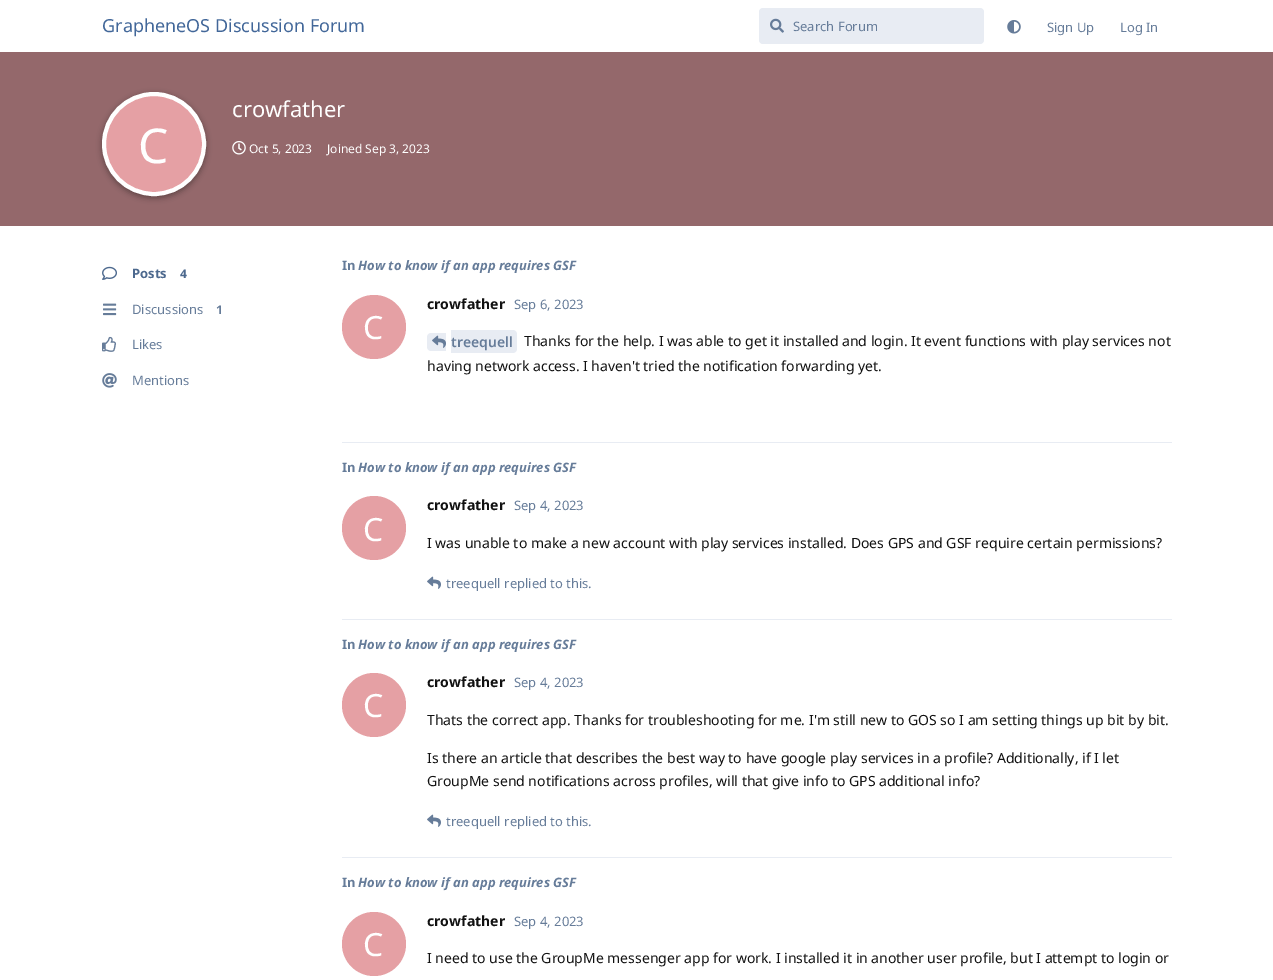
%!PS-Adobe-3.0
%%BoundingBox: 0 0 1273 980
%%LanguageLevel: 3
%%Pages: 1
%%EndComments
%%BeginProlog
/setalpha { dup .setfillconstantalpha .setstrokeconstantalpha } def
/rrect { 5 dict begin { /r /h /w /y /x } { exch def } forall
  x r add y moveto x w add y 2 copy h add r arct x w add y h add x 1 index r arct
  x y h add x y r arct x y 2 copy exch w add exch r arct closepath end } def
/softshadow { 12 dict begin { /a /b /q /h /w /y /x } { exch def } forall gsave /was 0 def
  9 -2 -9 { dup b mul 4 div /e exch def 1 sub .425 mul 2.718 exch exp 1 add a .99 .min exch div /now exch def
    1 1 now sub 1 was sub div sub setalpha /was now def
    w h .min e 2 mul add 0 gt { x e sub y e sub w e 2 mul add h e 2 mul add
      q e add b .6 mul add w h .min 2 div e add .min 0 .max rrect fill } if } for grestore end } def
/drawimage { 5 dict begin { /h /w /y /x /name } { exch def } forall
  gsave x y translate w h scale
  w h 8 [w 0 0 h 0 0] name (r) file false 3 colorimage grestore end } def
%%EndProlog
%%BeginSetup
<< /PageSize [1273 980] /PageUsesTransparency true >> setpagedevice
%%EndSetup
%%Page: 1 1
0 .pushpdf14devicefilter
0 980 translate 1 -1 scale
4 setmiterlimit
1 setgray
0 0 1273 980 rectfill
0.91 0.925 0.953 setrgbcolor
759 8 225 36 4 rrect fill
(images/1.raw) 770 18 14 15 drawimage
(images/2.raw) 1007 20 14 14 drawimage
0.58 0.408 0.42 setrgbcolor
0 52 1273 174 rectfill
0 setgray
102 94 104 104 52 3 0.35 softshadow
0.898 0.627 0.643 setrgbcolor
newpath 154 144 50 0 360 arc closepath gsave fill grestore
1 setgray
4 setlinewidth
stroke
(images/3.raw) 232 141 14 14 drawimage
(images/4.raw) 102 266 15 14 drawimage
(images/5.raw) 103 303 14 13 drawimage
(images/6.raw) 102 336 14 16 drawimage
(images/7.raw) 102 373 15 15 drawimage
0.91 0.925 0.953 setrgbcolor
342 442 830 1 rectfill
0.898 0.627 0.643 setrgbcolor
newpath 374 327 32 0 360 arc closepath fill
0.91 0.925 0.953 setrgbcolor
newpath 431 333 moveto 446 333 lineto 446 351 lineto 431 351 lineto 429 351 427 349 427 347 curveto 427 337 lineto 427 335 429 333 431 333 curveto closepath fill
newpath 451 330 moveto 513 330 lineto 515 330 517 332 517 334 curveto 517 349 lineto 517 351 515 353 513 353 curveto 451 353 lineto closepath fill
(images/8.raw) 432 335 14 13 drawimage
342 619 830 1 rectfill
0.898 0.627 0.643 setrgbcolor
newpath 374 528 32 0 360 arc closepath fill
(images/9.raw) 427 576 14 13 drawimage
0.91 0.925 0.953 setrgbcolor
342 857 830 1 rectfill
0.898 0.627 0.643 setrgbcolor
newpath 374 705 32 0 360 arc closepath fill
(images/9.raw) 427 814 14 13 drawimage
newpath 374 944 32 0 360 arc closepath fill
/NotoSans-Regular [18 0 0 -18 0 0] selectfont
0.259 0.404 0.6 setrgbcolor
102 32 moveto (GrapheneOS Discussion Forum) show
/NotoSans-Regular [13 0 0 -13 0 0] selectfont
0.4 0.486 0.6 setrgbcolor
793 31 moveto (Search Forum) show
1047 32 moveto (Sign Up) show
1120 32 moveto (Log In) show
/NotoSans-Regular [22 0 0 -22 0 0] selectfont
1 setgray
232 117 moveto (crowfather) show
/NotoSans-Regular [48 0 0 -48 0 0] selectfont
138 163 moveto (C) show
/NotoSans-Regular [12 0 0 -12 0 0] selectfont
249 153 moveto (Oct 5, 2023) show
327 153 moveto (Joined Sep 3, 2023) show
/NotoSans-Bold [13 0 0 -13 0 0] selectfont
0.302 0.412 0.557 setrgbcolor
132 278 moveto (Posts) show
/NotoSans-Bold [12 0 0 -12 0 0] selectfont
180 278 moveto (4) show
/NotoSans-Regular [13 0 0 -13 0 0] selectfont
0.4 0.486 0.6 setrgbcolor
132 314 moveto (Discussions) show
/NotoSans-Bold [12 0 0 -12 0 0] selectfont
216 314 moveto (1) show
/NotoSans-Regular [13 0 0 -13 0 0] selectfont
132 349 moveto (Likes) show
132 385 moveto (Mentions) show
/NotoSans-Bold [13 0 0 -13 0 0] selectfont
342 270 moveto (In) show
/NotoSans-BoldItalic [13 0 0 -13 0 0] selectfont
358 270 moveto (How to know if an app requires GSF) show
/NotoSans-Bold [14 0 0 -14 0 0] selectfont
0.067 setgray
427 309 moveto (crowfather) show
/NotoSans-Regular [32 0 0 -32 0 0] selectfont
1 setgray
363 339 moveto (C) show
/NotoSans-Regular [13 0 0 -13 0 0] selectfont
0.4 0.486 0.6 setrgbcolor
514 309 moveto (Sep 6, 2023) show
/NotoSans-SemiBold [14 0 0 -14 0 0] selectfont
451 347 moveto (treequell) show
/NotoSans-Regular [14 0 0 -14 0 0] selectfont
0.067 setgray
524 346 moveto (Thanks for the help. I was able to get it installed and login. It event functions with play services not) show
427 371 moveto (having network access. I haven't tried the notification forwarding yet.) show
/NotoSans-Bold [13 0 0 -13 0 0] selectfont
0.4 0.486 0.6 setrgbcolor
342 472 moveto (In) show
/NotoSans-BoldItalic [13 0 0 -13 0 0] selectfont
358 472 moveto (How to know if an app requires GSF) show
/NotoSans-Bold [14 0 0 -14 0 0] selectfont
0.067 setgray
427 510 moveto (crowfather) show
/NotoSans-Regular [32 0 0 -32 0 0] selectfont
1 setgray
363 541 moveto (C) show
/NotoSans-Regular [13 0 0 -13 0 0] selectfont
0.4 0.486 0.6 setrgbcolor
514 510 moveto (Sep 4, 2023) show
/NotoSans-Regular [14 0 0 -14 0 0] selectfont
0.067 setgray
427 548 moveto (I was unable to make a new account with play services installed. Does GPS and GSF require certain permissions?) show
/NotoSans-Regular [13 0 0 -13 0 0] selectfont
0.4 0.486 0.6 setrgbcolor
446 588 moveto (treequell replied to this.) show
/NotoSans-Bold [13 0 0 -13 0 0] selectfont
342 649 moveto (In) show
/NotoSans-BoldItalic [13 0 0 -13 0 0] selectfont
358 649 moveto (How to know if an app requires GSF) show
/NotoSans-Bold [14 0 0 -14 0 0] selectfont
0.067 setgray
427 687 moveto (crowfather) show
/NotoSans-Regular [32 0 0 -32 0 0] selectfont
1 setgray
363 717 moveto (C) show
/NotoSans-Regular [13 0 0 -13 0 0] selectfont
0.4 0.486 0.6 setrgbcolor
514 687 moveto (Sep 4, 2023) show
/NotoSans-Regular [14 0 0 -14 0 0] selectfont
0.067 setgray
427 725 moveto (Thats the correct app. Thanks for troubleshooting for me. I'm still new to GOS so I am setting things up bit by bit.) show
427 763 moveto (Is there an article that describes the best way to have google play services in a profile? Additionally, if I let) show
427 786 moveto (GroupMe send notifications across profiles, will that give info to GPS additional info?) show
/NotoSans-Regular [13 0 0 -13 0 0] selectfont
0.4 0.486 0.6 setrgbcolor
446 826 moveto (treequell replied to this.) show
/NotoSans-Bold [13 0 0 -13 0 0] selectfont
342 887 moveto (In) show
/NotoSans-BoldItalic [13 0 0 -13 0 0] selectfont
358 887 moveto (How to know if an app requires GSF) show
/NotoSans-Bold [14 0 0 -14 0 0] selectfont
0.067 setgray
427 926 moveto (crowfather) show
/NotoSans-Regular [32 0 0 -32 0 0] selectfont
1 setgray
363 956 moveto (C) show
/NotoSans-Regular [13 0 0 -13 0 0] selectfont
0.4 0.486 0.6 setrgbcolor
514 926 moveto (Sep 4, 2023) show
/NotoSans-Regular [14 0 0 -14 0 0] selectfont
0.067 setgray
427 963 moveto (I need to use the GroupMe messenger app for work. I installed it in another user profile, but I attempt to login or) show
.poppdf14devicefilter showpage
%%EOF
